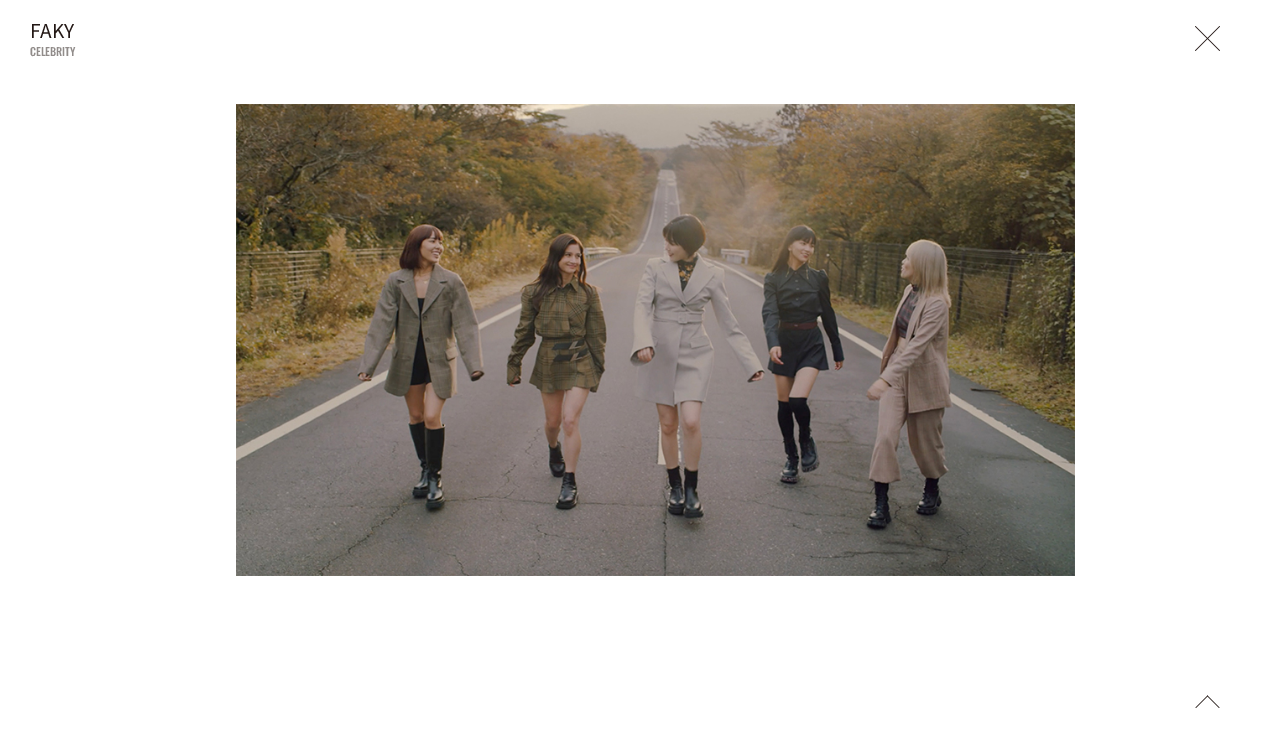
%!PS-Adobe-3.0
%%BoundingBox: 0 0 1263 735
%%LanguageLevel: 3
%%Pages: 1
%%EndComments
%%BeginProlog
/drawimage { 5 dict begin { /h /w /y /x /name } { exch def } forall
  gsave x y translate w h scale
  w h 8 [w 0 0 h 0 0] name (r) file false 3 colorimage grestore end } def
%%EndProlog
%%BeginSetup
<< /PageSize [1263 735] >> setpagedevice
%%EndSetup
%%Page: 1 1
0 735 translate 1 -1 scale
4 setmiterlimit
1 setgray
0 0 1263 735 rectfill
0.137 0.094 0.082 setrgbcolor
newpath 1195.5 26 moveto 1220 50.5 lineto 1219.5 51 lineto 1195 26.5 lineto closepath fill
newpath 1195 50.5 moveto 1219.5 26 lineto 1220 26.5 lineto 1195.5 51 lineto closepath fill
(images/1.raw) 236 104 839 472 drawimage
newpath 1195.5 707.5 moveto 1207.5 695.5 lineto 1208 696 lineto 1196 708 lineto closepath fill
newpath 1207 696 moveto 1207.5 695.5 lineto 1219.5 707.5 lineto 1219 708 lineto closepath fill
/NotoSansJP-Thin [19 0 0 -19 0 0] selectfont
30 38 moveto (FAKY) show
/Oswald-Medium [11 0 0 -11 0 0] selectfont
0.569 0.549 0.541 setrgbcolor
30 56 moveto (CELEBRITY) show
showpage
%%EOF
